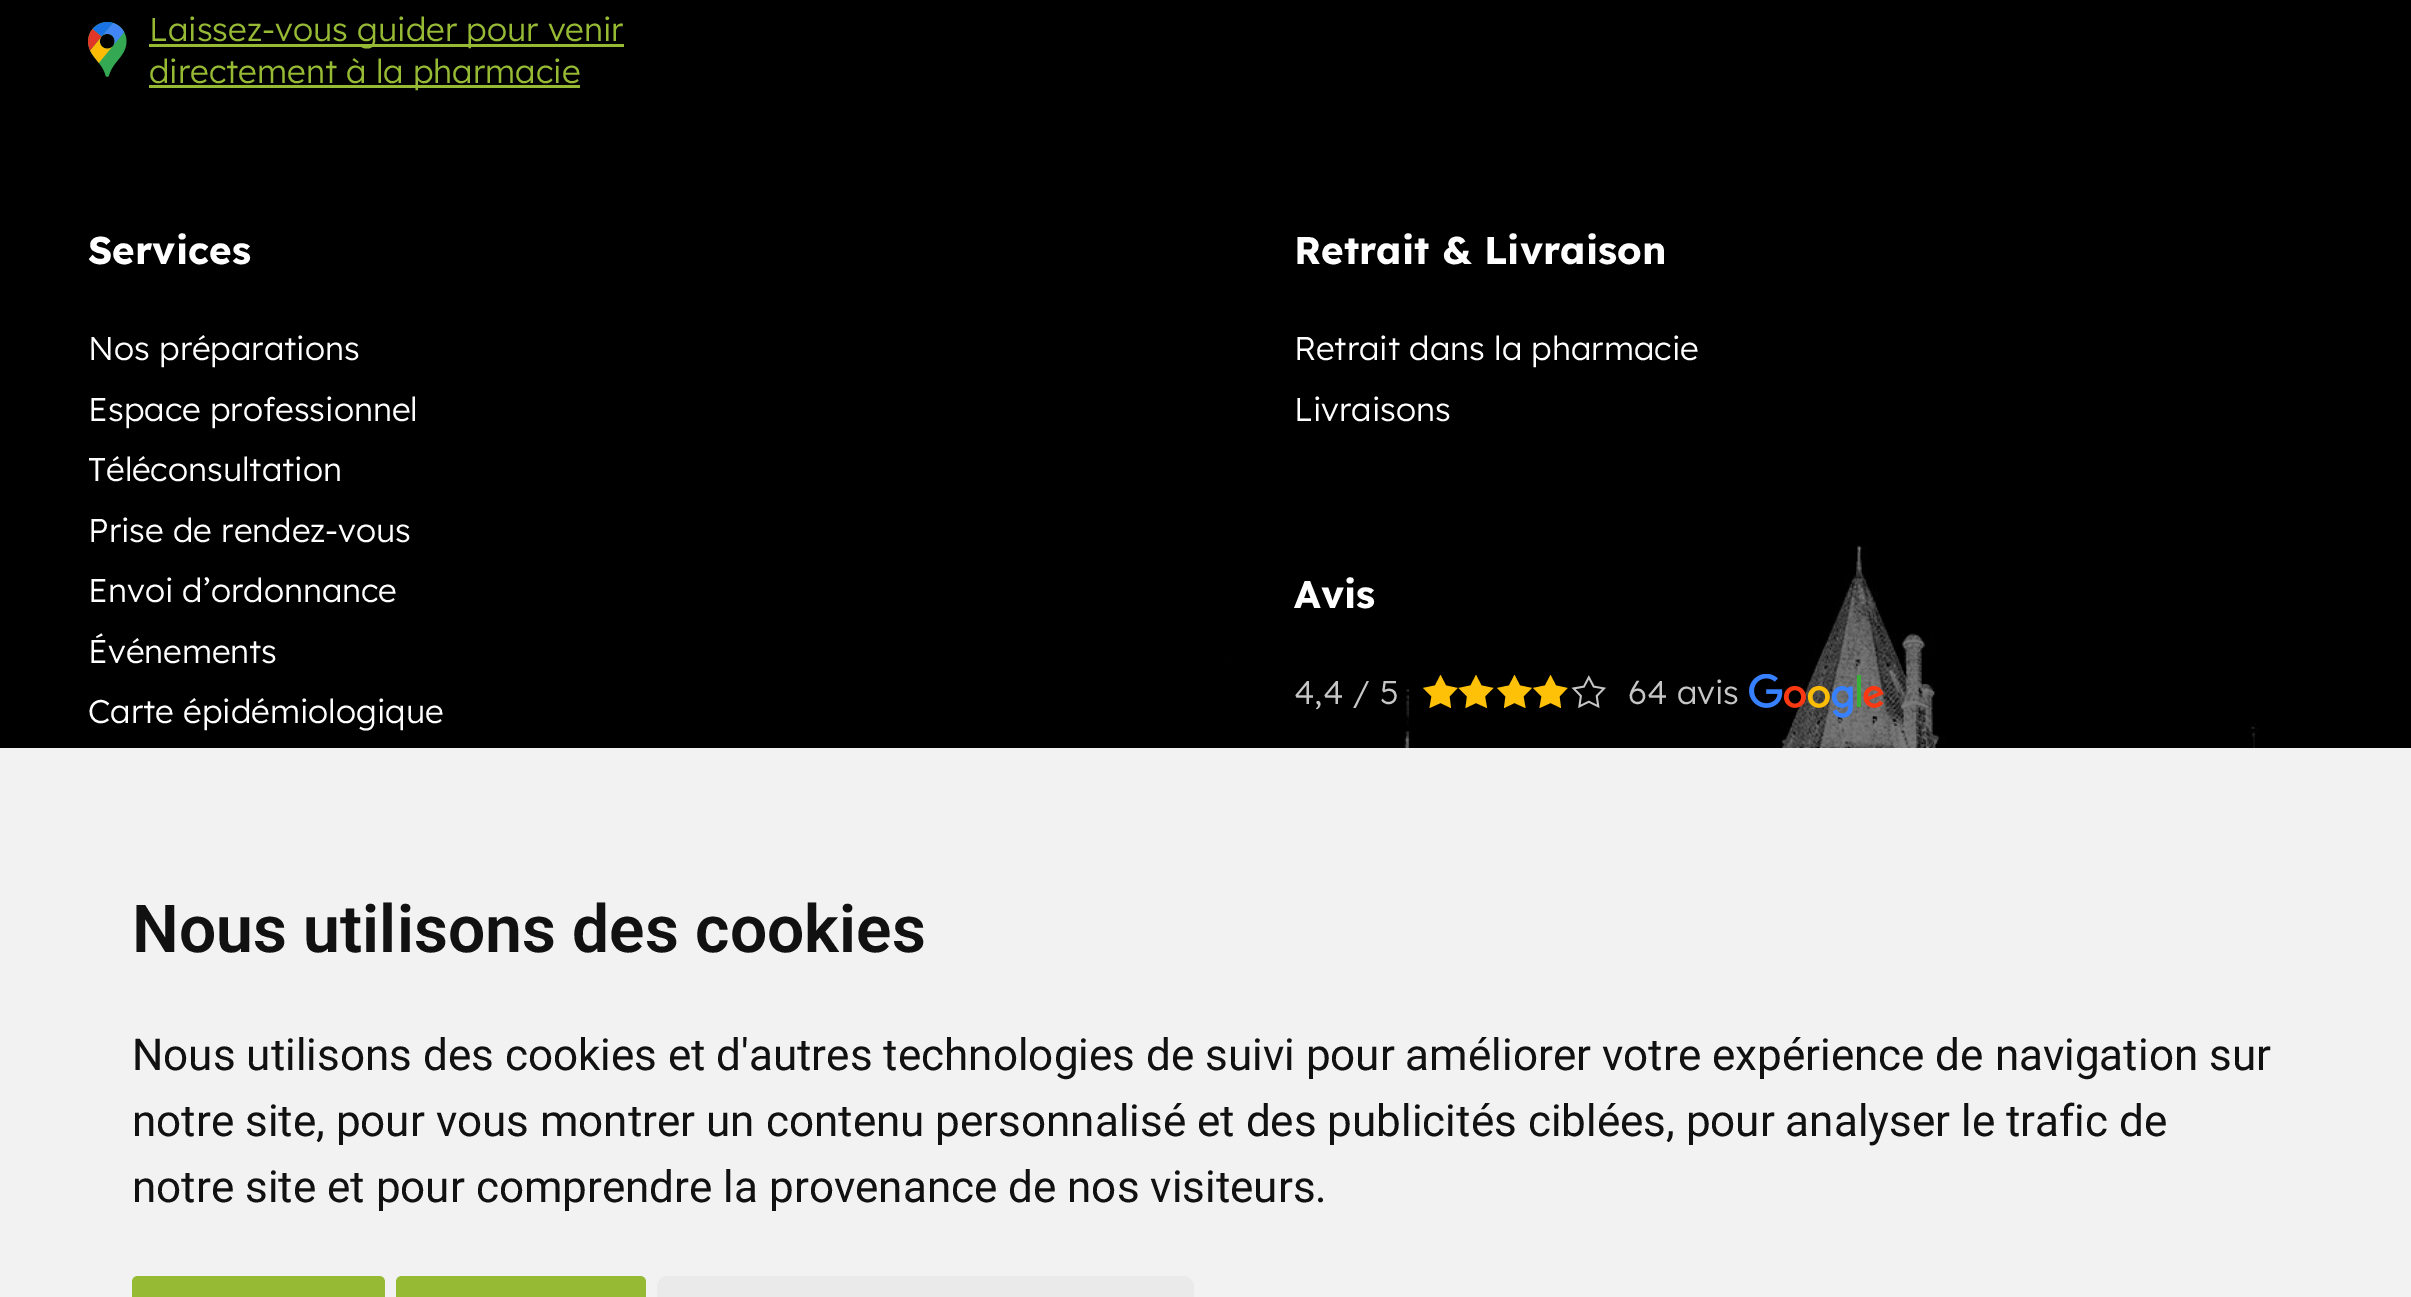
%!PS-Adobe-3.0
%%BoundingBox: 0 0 2411 1297
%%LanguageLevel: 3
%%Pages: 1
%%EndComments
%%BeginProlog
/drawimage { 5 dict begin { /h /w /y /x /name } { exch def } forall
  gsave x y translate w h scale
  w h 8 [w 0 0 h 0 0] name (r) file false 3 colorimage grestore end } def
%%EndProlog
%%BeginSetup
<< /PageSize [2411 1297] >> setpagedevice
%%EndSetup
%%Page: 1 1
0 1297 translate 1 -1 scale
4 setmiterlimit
0 setgray
0 0 2411 1297 rectfill
(images/1.raw) 965 546 1446 202 drawimage
(images/2.raw) 88 22 39 55 drawimage
0.588 0.729 0.204 setrgbcolor
149 44 475 3 rectfill
149 85 431 3 rectfill
1 0.757 0.027 setrgbcolor
newpath 1440.5 675 moveto 1446 685.5 lineto 1440.5 675 lineto 1446 685.5 lineto 1457.5 688 lineto 1449.5 696.5 lineto 1451 708 lineto 1440.5 703 lineto 1429.5 708 lineto 1431.5 696.5 lineto 1423 688 lineto 1435 685.5 lineto closepath fill
newpath 1476 675 moveto 1481.5 685.5 lineto 1476 675 lineto 1481.5 685.5 lineto 1493.5 688 lineto 1485 696.5 lineto 1487 708 lineto 1476 703 lineto 1465.5 708 lineto 1467 696.5 lineto 1458.5 688 lineto 1470.5 685.5 lineto closepath fill
newpath 1514.5 675 moveto 1520 685.5 lineto 1514.5 675 lineto 1520 685.5 lineto 1532 688 lineto 1523.5 696.5 lineto 1525.5 708 lineto 1514.5 703 lineto 1504 708 lineto 1505.5 696.5 lineto 1497 688 lineto 1509 685.5 lineto closepath fill
newpath 1550.5 675 moveto 1556 685.5 lineto 1550.5 675 lineto 1556 685.5 lineto 1567.5 688 lineto 1559.5 696.5 lineto 1561 708 lineto 1550.5 703 lineto 1539.5 708 lineto 1541.5 696.5 lineto 1533 688 lineto 1545 685.5 lineto closepath fill
(images/3.raw) 1571 675 35 33 drawimage
(images/4.raw) 1749 674 135 44 drawimage
0.949 setgray
0 748 2411 549 rectfill
0.588 0.729 0.204 setrgbcolor
newpath 138 1276 moveto 379 1276 lineto 382.5 1276 385 1278.5 385 1282 curveto 385 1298 lineto 132 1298 lineto 132 1282 lineto 132 1278.5 134.5 1276 138 1276 curveto closepath fill
newpath 402 1276 moveto 640 1276 lineto 643.5 1276 646 1278.5 646 1282 curveto 646 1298 lineto 396 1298 lineto 396 1282 lineto 396 1278.5 398.5 1276 402 1276 curveto closepath fill
0.918 setgray
newpath 668 1276 moveto 1183 1276 lineto 1189 1276 1194 1281 1194 1287 curveto 1194 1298 lineto 657 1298 lineto 657 1287 lineto 657 1281 662 1276 668 1276 curveto closepath fill
/Lexend-Light [33 0 0 -33 0 0] selectfont
0.588 0.729 0.204 setrgbcolor
149 41 moveto (Laissez-vous guider pour venir) show
149 83 moveto (directement à la pharmacie) show
/Lexend-Bold [38.5 0 0 -38.5 0 0] selectfont
1 setgray
88 264 moveto (Services) show
/Lexend-Light [33 0 0 -33 0 0] selectfont
88 360 moveto (Nos préparations) show
88 421 moveto (Espace professionnel) show
88 481 moveto (Téléconsultation) show
88 542 moveto (Prise de rendez-vous) show
88 602 moveto (Envoi d’ordonnance) show
88 663 moveto (Événements) show
88 723 moveto (Carte épidémiologique) show
/Lexend-Bold [38.5 0 0 -38.5 0 0] selectfont
1294 264 moveto (Retrait & Livraison) show
/Lexend-Light [33 0 0 -33 0 0] selectfont
1294 360 moveto (Retrait dans la pharmacie) show
1294 421 moveto (Livraisons) show
/Lexend-Bold [38.5 0 0 -38.5 0 0] selectfont
1294 608 moveto (Avis) show
/Lexend-Light [33 0 0 -33 0 0] selectfont
0.776 setgray
1294 704 moveto (4,4 / 5) show
1628 704 moveto (64 avis) show
/Roboto-SemiBold [66 0 0 -66 0 0] selectfont
0.067 setgray
132 952 moveto (Nous utilisons des cookies) show
/Roboto-Regular [44 0 0 -44 0 0] selectfont
132 1070 moveto (Nous utilisons des cookies et d'autres technologies de suivi pour améliorer votre expérience de navigation sur) show
132 1136 moveto (notre site, pour vous montrer un contenu personnalisé et des publicités ciblées, pour analyser le trafic de) show
132 1202 moveto (notre site et pour comprendre la provenance de nos visiteurs.) show
showpage
%%EOF
